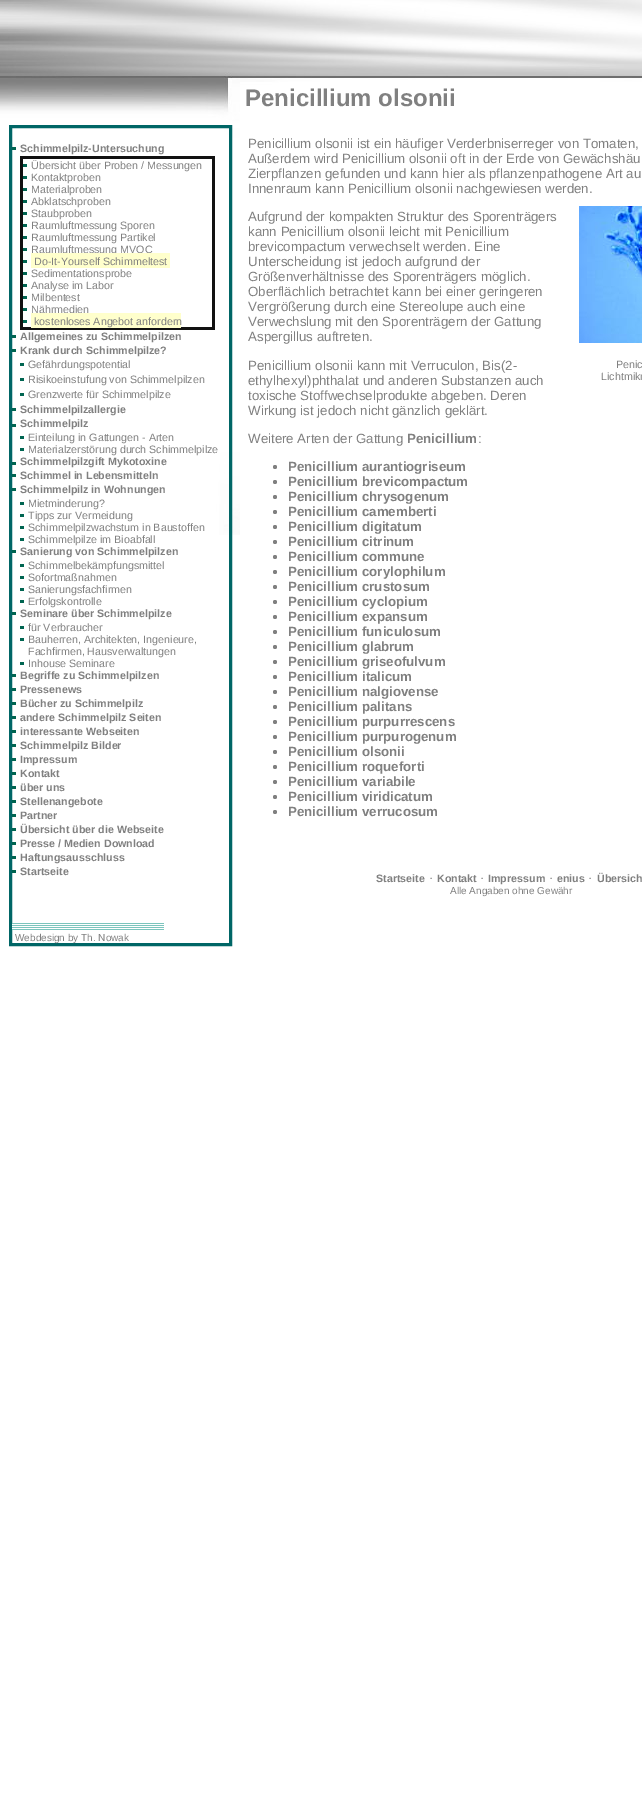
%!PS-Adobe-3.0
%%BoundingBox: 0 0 642 1819
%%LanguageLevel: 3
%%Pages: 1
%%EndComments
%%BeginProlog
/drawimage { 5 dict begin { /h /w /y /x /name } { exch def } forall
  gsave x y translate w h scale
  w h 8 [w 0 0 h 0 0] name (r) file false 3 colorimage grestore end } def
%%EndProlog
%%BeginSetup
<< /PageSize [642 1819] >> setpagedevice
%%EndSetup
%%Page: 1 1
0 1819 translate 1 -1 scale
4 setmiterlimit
1 setgray
0 0 642 1819 rectfill
(images/1.raw) 0 0 642 535 drawimage
0 0.4 0.4 setrgbcolor
3 setlinewidth
10.5 126.5 220 818 rectstroke
0 0.396 0.318 setrgbcolor
12 147 4 3 rectfill
0.067 setgray
20 156 195 3 rectfill
212 156 3 174 rectfill
20 327 195 3 rectfill
20 156 3 174 rectfill
0 0.396 0.318 setrgbcolor
23 164 4 3 rectfill
23 176 4 3 rectfill
23 188 4 3 rectfill
23 200 4 3 rectfill
23 212 4 3 rectfill
23 224 4 3 rectfill
23 236 4 3 rectfill
23 248 4 3 rectfill
23 260 4 3 rectfill
23 272 4 3 rectfill
23 284 4 3 rectfill
23 296 4 3 rectfill
23 308 4 3 rectfill
23 320 4 3 rectfill
12 335 4 3 rectfill
12 349 4 3 rectfill
20 363 4 3 rectfill
20 378 4 3 rectfill
20 393 4 3 rectfill
12 408 4 3 rectfill
12 424 4 3 rectfill
20 436 4 3 rectfill
20 448 4 3 rectfill
12 462 4 3 rectfill
12 474 4 3 rectfill
12 488 4 3 rectfill
20 502 4 3 rectfill
20 514 4 3 rectfill
20 526 4 3 rectfill
20 538 4 3 rectfill
12 550 4 3 rectfill
20 564 4 3 rectfill
20 576 4 3 rectfill
20 588 4 3 rectfill
20 600 4 3 rectfill
12 612 4 3 rectfill
20 626 4 3 rectfill
20 638 4 3 rectfill
20 662 4 3 rectfill
12 674 4 3 rectfill
12 688 4 3 rectfill
12 702 4 3 rectfill
12 716 4 3 rectfill
12 730 4 3 rectfill
12 744 4 3 rectfill
12 758 4 3 rectfill
12 772 4 3 rectfill
12 786 4 3 rectfill
12 800 4 3 rectfill
12 814 4 3 rectfill
12 828 4 3 rectfill
12 842 4 3 rectfill
12 856 4 3 rectfill
12 870 4 3 rectfill
(images/2.raw) 12 923 152 7 drawimage
(images/3.raw) 579 206 63 137 drawimage
0.502 setgray
newpath 275 467 2 0 360 arc closepath fill
newpath 275 482 2 0 360 arc closepath fill
newpath 275 497 2 0 360 arc closepath fill
newpath 275 512 2 0 360 arc closepath fill
newpath 275 527 2 0 360 arc closepath fill
newpath 275 542 2 0 360 arc closepath fill
newpath 275 557 2 0 360 arc closepath fill
newpath 275 572 2 0 360 arc closepath fill
newpath 275 587 2 0 360 arc closepath fill
newpath 275 602 2 0 360 arc closepath fill
newpath 275 617 2 0 360 arc closepath fill
newpath 275 632 2 0 360 arc closepath fill
newpath 275 647 2 0 360 arc closepath fill
newpath 275 662 2 0 360 arc closepath fill
newpath 275 677 2 0 360 arc closepath fill
newpath 275 692 2 0 360 arc closepath fill
newpath 275 707 2 0 360 arc closepath fill
newpath 275 722 2 0 360 arc closepath fill
newpath 275 737 2 0 360 arc closepath fill
newpath 275 752 2 0 360 arc closepath fill
newpath 275 767 2 0 360 arc closepath fill
newpath 275 782 2 0 360 arc closepath fill
newpath 275 797 2 0 360 arc closepath fill
newpath 275 812 2 0 360 arc closepath fill
/LiberationSans-Bold [24 0 0 -24 0 0] selectfont
245 106 moveto (Penicillium olsonii) show
/LiberationSans-Bold [10.7 0 0 -10.7 0 0] selectfont
20 152 moveto (Schimmelpilz-Untersuchung) show
/LiberationSans-Regular [10.7 0 0 -10.7 0 0] selectfont
31 169 moveto (Übersicht über Proben / Messungen) show
31 181 moveto (Kontaktproben) show
31 193 moveto (Materialproben) show
31 205 moveto (Abklatschproben) show
31 217 moveto (Staubproben) show
31 229 moveto (Raumluftmessung Sporen) show
31 241 moveto (Raumluftmessung Partikel) show
31 253 moveto (Raumluftmessung MVOC) show
1 1 0.8 setrgbcolor
31 253 139 15 rectfill
0.502 setgray
34 265 moveto (Do-It-Yourself Schimmeltest) show
31 277 moveto (Sedimentationsprobe) show
31 289 moveto (Analyse im Labor) show
31 301 moveto (Milbentest) show
31 313 moveto (Nährmedien) show
1 1 0.8 setrgbcolor
31 313 150 15 rectfill
0.502 setgray
34 325 moveto (kostenloses Angebot anfordern) show
/LiberationSans-Bold [10.7 0 0 -10.7 0 0] selectfont
20 340 moveto (Allgemeines zu Schimmelpilzen) show
20 354 moveto (Krank durch Schimmelpilze?) show
/LiberationSans-Regular [10.7 0 0 -10.7 0 0] selectfont
28 368 moveto (Gefährdungspotential) show
28 383 moveto (Risikoeinstufung von Schimmelpilzen) show
28 398 moveto (Grenzwerte für Schimmelpilze) show
/LiberationSans-Bold [10.7 0 0 -10.7 0 0] selectfont
20 413 moveto (Schimmelpilzallergie) show
20 427 moveto (Schimmelpilz) show
/LiberationSans-Regular [10.7 0 0 -10.7 0 0] selectfont
28 441 moveto (Einteilung in Gattungen - Arten) show
28 453 moveto (Materialzerstörung durch Schimmelpilze) show
/LiberationSans-Bold [10.7 0 0 -10.7 0 0] selectfont
20 465 moveto (Schimmelpilzgift Mykotoxine) show
20 479 moveto (Schimmel in Lebensmitteln) show
20 493 moveto (Schimmelpilz in Wohnungen) show
/LiberationSans-Regular [10.7 0 0 -10.7 0 0] selectfont
28 507 moveto (Mietminderung?) show
28 519 moveto (Tipps zur Vermeidung) show
28 531 moveto (Schimmelpilzwachstum in Baustoffen) show
28 543 moveto (Schimmelpilze im Bioabfall) show
/LiberationSans-Bold [10.7 0 0 -10.7 0 0] selectfont
20 555 moveto (Sanierung von Schimmelpilzen) show
/LiberationSans-Regular [10.7 0 0 -10.7 0 0] selectfont
28 569 moveto (Schimmelbekämpfungsmittel) show
28 581 moveto (Sofortmaßnahmen) show
28 593 moveto (Sanierungsfachfirmen) show
28 605 moveto (Erfolgskontrolle) show
/LiberationSans-Bold [10.7 0 0 -10.7 0 0] selectfont
20 617 moveto (Seminare über Schimmelpilze) show
/LiberationSans-Regular [10.7 0 0 -10.7 0 0] selectfont
28 631 moveto (für Verbraucher) show
28 643 moveto (Bauherren, Architekten, Ingenieure,) show
28 655 moveto (Fachfirmen, Hausverwaltungen) show
28 667 moveto (Inhouse Seminare) show
/LiberationSans-Bold [10.7 0 0 -10.7 0 0] selectfont
20 679 moveto (Begriffe zu Schimmelpilzen) show
20 693 moveto (Pressenews) show
20 707 moveto (Bücher zu Schimmelpilz) show
20 721 moveto (andere Schimmelpilz Seiten) show
20 735 moveto (interessante Webseiten) show
20 749 moveto (Schimmelpilz Bilder) show
20 763 moveto (Impressum) show
20 777 moveto (Kontakt) show
20 791 moveto (über uns) show
20 805 moveto (Stellenangebote) show
20 819 moveto (Partner) show
20 833 moveto (Übersicht über die Webseite) show
20 847 moveto (Presse / Medien Download) show
20 861 moveto (Haftungsausschluss) show
20 875 moveto (Startseite) show
/LiberationSans-Regular [10 0 0 -10 0 0] selectfont
15 941 moveto (Webdesign by Th. Nowak) show
/LiberationSans-Regular [13.3 0 0 -13.3 0 0] selectfont
248 148 moveto (Penicillium olsonii ist ein häufiger Verderbniserreger von Tomaten,) show
248 163 moveto (Außerdem wird Penicillium olsonii oft in der Erde von Gewächshäu) show
248 178 moveto (Zierpflanzen gefunden und kann hier als pflanzenpathogene Art au) show
248 193 moveto (Innenraum kann Penicillium olsonii nachgewiesen werden.) show
248 221 moveto (Aufgrund der kompakten Struktur des Sporenträgers) show
248 236 moveto (kann Penicillium olsonii leicht mit Penicillium) show
248 251 moveto (brevicompactum verwechselt werden. Eine) show
248 266 moveto (Unterscheidung ist jedoch aufgrund der) show
248 281 moveto (Größenverhältnisse des Sporenträgers möglich.) show
248 296 moveto (Oberflächlich betrachtet kann bei einer geringeren) show
248 311 moveto (Vergrößerung durch eine Stereolupe auch eine) show
248 326 moveto (Verwechslung mit den Sporenträgern der Gattung) show
248 341 moveto (Aspergillus auftreten.) show
248 370 moveto (Penicillium olsonii kann mit Verruculon, Bis\(2-) show
248 385 moveto (ethylhexyl\)phthalat und anderen Substanzen auch) show
248 400 moveto (toxische Stoffwechselprodukte abgeben. Deren) show
248 415 moveto (Wirkung ist jedoch nicht gänzlich geklärt.) show
/LiberationSans-Regular [10.7 0 0 -10.7 0 0] selectfont
616 368 moveto (Penic) show
601 380 moveto (Lichtmikr) show
/LiberationSans-Regular [13.3 0 0 -13.3 0 0] selectfont
248 443 moveto (Weitere Arten der Gattung) show
/LiberationSans-Bold [13.3 0 0 -13.3 0 0] selectfont
407 443 moveto (Penicillium) show
/LiberationSans-Regular [13.3 0 0 -13.3 0 0] selectfont
478 443 moveto (:) show
/LiberationSans-Bold [13.3 0 0 -13.3 0 0] selectfont
288 471 moveto (Penicillium aurantiogriseum) show
288 486 moveto (Penicillium brevicompactum) show
288 501 moveto (Penicillium chrysogenum) show
288 516 moveto (Penicillium camemberti) show
288 531 moveto (Penicillium digitatum) show
288 546 moveto (Penicillium citrinum) show
288 561 moveto (Penicillium commune) show
288 576 moveto (Penicillium corylophilum) show
288 591 moveto (Penicillium crustosum) show
288 606 moveto (Penicillium cyclopium) show
288 621 moveto (Penicillium expansum) show
288 636 moveto (Penicillium funiculosum) show
288 651 moveto (Penicillium glabrum) show
288 666 moveto (Penicillium griseofulvum) show
288 681 moveto (Penicillium italicum) show
288 696 moveto (Penicillium nalgiovense) show
288 711 moveto (Penicillium palitans) show
288 726 moveto (Penicillium purpurrescens) show
288 741 moveto (Penicillium purpurogenum) show
288 756 moveto (Penicillium olsonii) show
288 771 moveto (Penicillium roqueforti) show
288 786 moveto (Penicillium variabile) show
288 801 moveto (Penicillium viridicatum) show
288 816 moveto (Penicillium verrucosum) show
/LiberationSans-Bold [10.7 0 0 -10.7 0 0] selectfont
376 882 moveto (Startseite) show
/LiberationSans-Regular [13.3 0 0 -13.3 0 0] selectfont
429 882 moveto (·) show
/LiberationSans-Bold [10.7 0 0 -10.7 0 0] selectfont
437 882 moveto (Kontakt) show
/LiberationSans-Regular [13.3 0 0 -13.3 0 0] selectfont
480 882 moveto (·) show
/LiberationSans-Bold [10.7 0 0 -10.7 0 0] selectfont
488 882 moveto (Impressum) show
/LiberationSans-Regular [13.3 0 0 -13.3 0 0] selectfont
549 882 moveto (·) show
/LiberationSans-Bold [10.7 0 0 -10.7 0 0] selectfont
557 882 moveto (enius) show
/LiberationSans-Regular [13.3 0 0 -13.3 0 0] selectfont
588 882 moveto (·) show
/LiberationSans-Bold [10.7 0 0 -10.7 0 0] selectfont
597 882 moveto (Übersich) show
/LiberationSans-Regular [10 0 0 -10 0 0] selectfont
450 894 moveto (Alle Angaben ohne Gewähr) show
showpage
%%EOF
